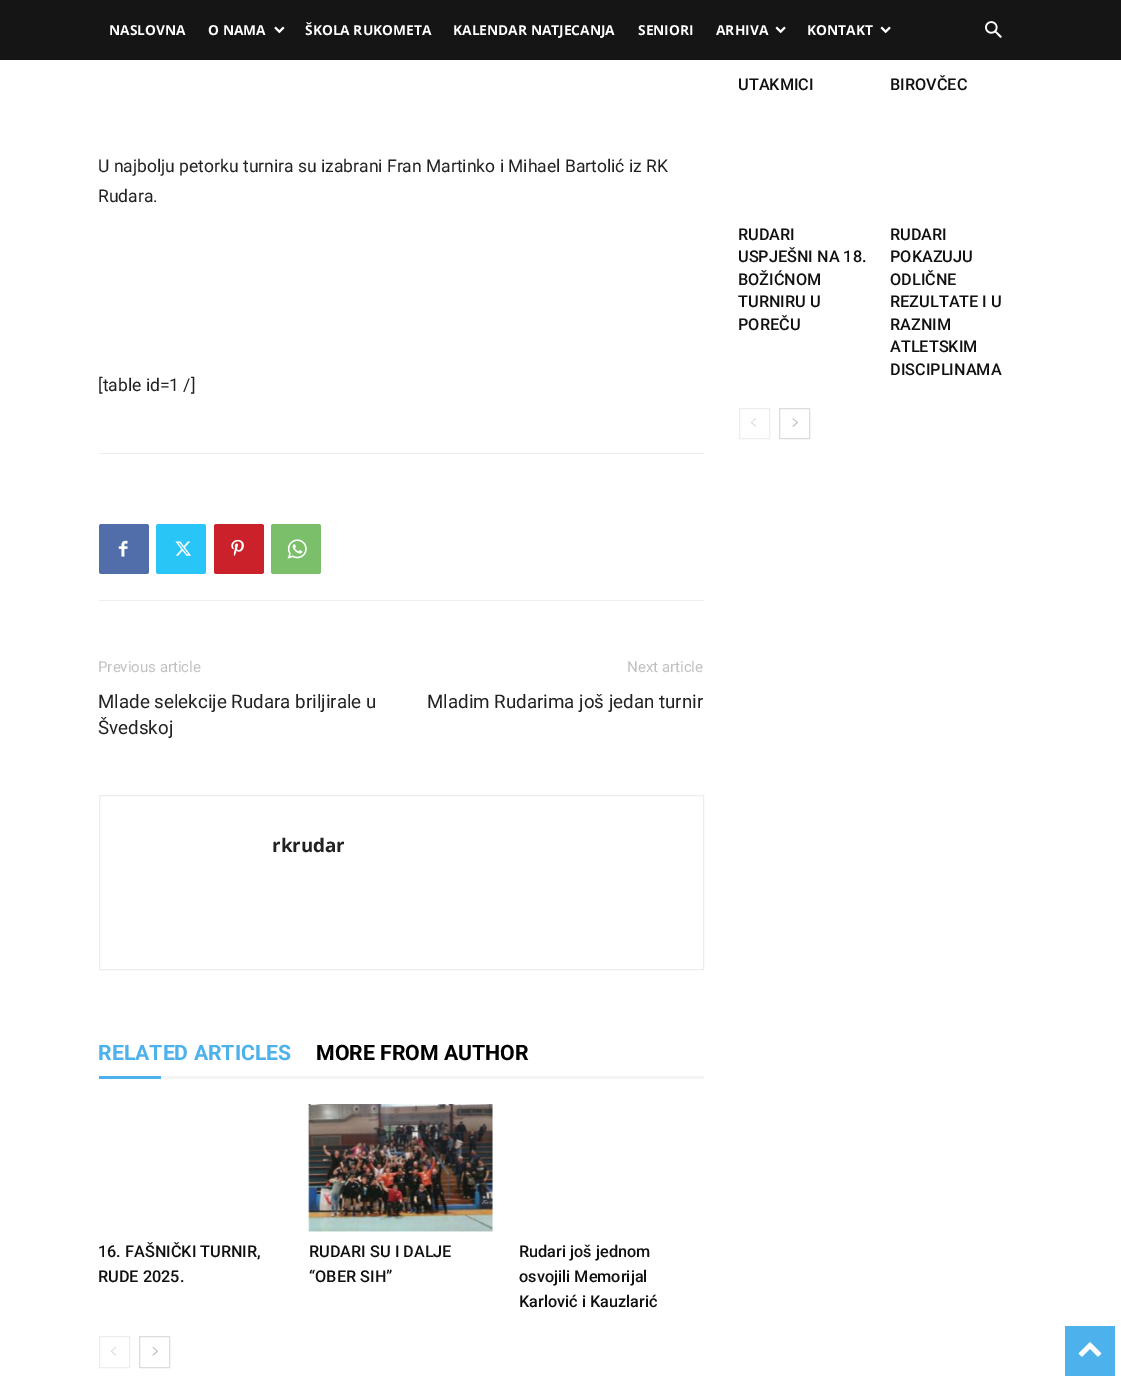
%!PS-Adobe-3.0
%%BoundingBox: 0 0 1121 1381
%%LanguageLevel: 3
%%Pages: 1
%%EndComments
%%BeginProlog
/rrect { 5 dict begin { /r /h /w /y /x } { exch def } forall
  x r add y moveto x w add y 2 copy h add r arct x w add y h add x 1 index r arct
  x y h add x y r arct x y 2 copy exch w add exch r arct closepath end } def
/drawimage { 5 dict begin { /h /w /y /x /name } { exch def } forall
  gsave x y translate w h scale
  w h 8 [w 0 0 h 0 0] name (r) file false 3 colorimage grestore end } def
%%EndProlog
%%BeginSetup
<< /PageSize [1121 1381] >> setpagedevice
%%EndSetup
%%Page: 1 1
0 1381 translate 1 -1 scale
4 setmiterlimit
1 setgray
0 0 1121 1381 rectfill
0.082 setgray
0 0 1121 60 rectfill
(images/1.raw) 274 26 11 8 drawimage
(images/2.raw) 775 26 11 8 drawimage
(images/2.raw) 880 26 11 8 drawimage
(images/3.raw) 985 21 17 17 drawimage
0.929 setgray
99 453 605 1 rectfill
99 600 605 1 rectfill
0.318 0.431 0.671 setrgbcolor
99 524 50 50 2.5 rrect fill
(images/4.raw) 118 540 10 17 drawimage
0.161 0.773 0.965 setrgbcolor
156 524 50 50 2.5 rrect fill
(images/5.raw) 175 541 16 15 drawimage
0.792 0.129 0.165 setrgbcolor
214 524 50 50 2.5 rrect fill
(images/6.raw) 231 539 13 17 drawimage
0.482 0.749 0.416 setrgbcolor
271 524 50 50 2.5 rrect fill
(images/7.raw) 287 539 20 20 drawimage
0.929 setgray
99.5 795.5 604 174 rectstroke
0.302 0.698 0.925 setrgbcolor
99 1076 62 3 rectfill
0.961 setgray
161 1076 543 3 rectfill
(images/8.raw) 308 1104 185 128 drawimage
0.933 setgray
99.5 1336.5 30 31 rectstroke
(images/9.raw) 110 1347 7 9 drawimage
0.863 setgray
139.5 1336.5 30 31 rectstroke
(images/10.raw) 152 1347 6 9 drawimage
0.933 setgray
739.5 408.5 30 30 rectstroke
(images/11.raw) 750 418 7 9 drawimage
0.863 setgray
779.5 408.5 30 30 rectstroke
(images/12.raw) 792 418 6 9 drawimage
0.302 0.698 0.925 setrgbcolor
1065 1326 50 50 rectfill
(images/13.raw) 1078 1342 24 15 drawimage
/OpenSans-Bold [13.75 0 0 -13.75 0 0] selectfont
1 setgray
109 35 moveto (NASLOVNA) show
208 35 moveto (O NAMA) show
305 35 moveto (ŠKOLA RUKOMETA) show
453 35 moveto (KALENDAR NATJECANJA) show
638 35 moveto (SENIORI) show
716 35 moveto (ARHIVA) show
807 35 moveto (KONTAKT) show
/Roboto-Regular [17.5 0 0 -17.5 0 0] selectfont
0.133 setgray
98 172 moveto (U najbolju petorku turnira su izabrani Fran Martinko i Mihael Bartolić iz RK) show
98 202 moveto (Rudara.) show
98 391 moveto ([table id=1 /]) show
/Roboto-Regular [15 0 0 -15 0 0] selectfont
0.757 setgray
98 672 moveto (Previous article) show
/Roboto-Regular [18.75 0 0 -18.75 0 0] selectfont
0.133 setgray
98 708 moveto (Mlade selekcije Rudara briljirale u) show
98 734 moveto (Švedskoj) show
/Roboto-Regular [15 0 0 -15 0 0] selectfont
0.757 setgray
627 672 moveto (Next article) show
/Roboto-Regular [18.75 0 0 -18.75 0 0] selectfont
0.133 setgray
427 708 moveto (Mladim Rudarima još jedan turnir) show
/OpenSans-Bold [18.75 0 0 -18.75 0 0] selectfont
272 852 moveto (rkrudar) show
/Roboto-Bold [21.25 0 0 -21.25 0 0] selectfont
0.302 0.698 0.925 setrgbcolor
98 1060 moveto (RELATED ARTICLES) show
0 setgray
316 1060 moveto (MORE FROM AUTHOR) show
/Roboto-Medium [16.25 0 0 -16.25 0 0] selectfont
0.067 setgray
98 1257 moveto (16. FAŠNIČKI TURNIR,) show
98 1282 moveto (RUDE 2025.) show
309 1257 moveto (RUDARI SU I DALJE) show
309 1282 moveto (“OBER SIH”) show
519 1257 moveto (Rudari još jednom) show
519 1282 moveto (osvojili Memorijal) show
519 1307 moveto (Karlović i Kauzlarić) show
738 90 moveto (UTAKMICI) show
890 90 moveto (BIROVČEC) show
738 240 moveto (RUDARI) show
738 262 moveto (USPJEŠNI NA 18.) show
738 285 moveto (BOŽIĆNOM) show
738 307 moveto (TURNIRU U) show
738 330 moveto (POREČU) show
890 240 moveto (RUDARI) show
890 262 moveto (POKAZUJU) show
890 285 moveto (ODLIČNE) show
890 307 moveto (REZULTATE I U) show
890 330 moveto (RAZNIM) show
890 352 moveto (ATLETSKIM) show
890 375 moveto (DISCIPLINAMA) show
showpage
%%EOF
